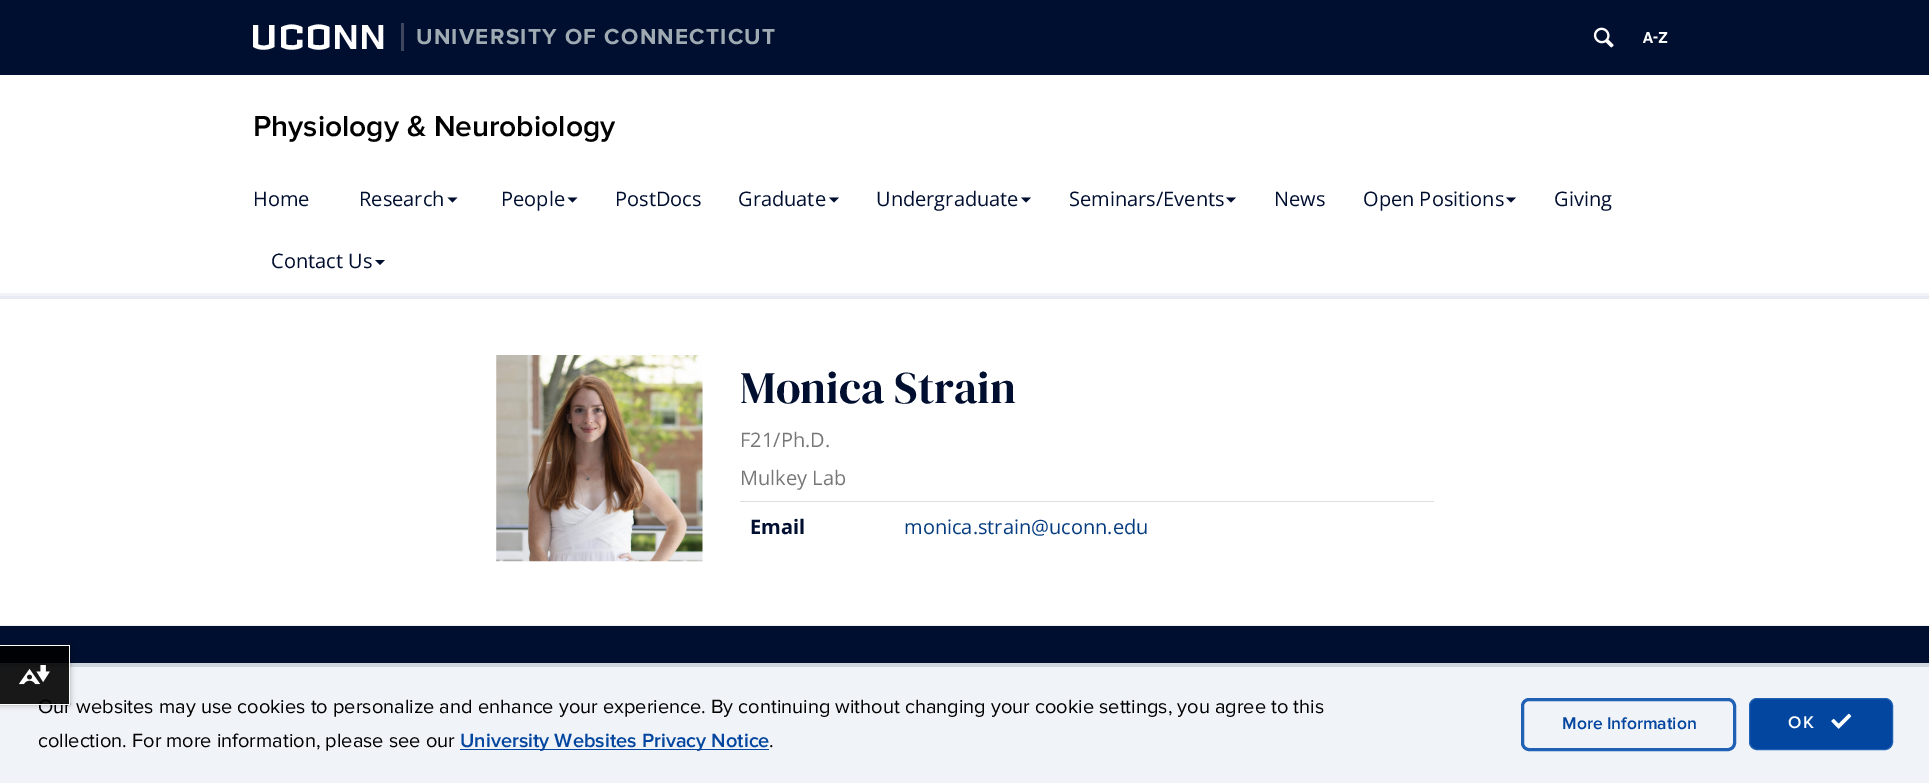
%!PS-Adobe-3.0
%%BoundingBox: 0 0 1929 783
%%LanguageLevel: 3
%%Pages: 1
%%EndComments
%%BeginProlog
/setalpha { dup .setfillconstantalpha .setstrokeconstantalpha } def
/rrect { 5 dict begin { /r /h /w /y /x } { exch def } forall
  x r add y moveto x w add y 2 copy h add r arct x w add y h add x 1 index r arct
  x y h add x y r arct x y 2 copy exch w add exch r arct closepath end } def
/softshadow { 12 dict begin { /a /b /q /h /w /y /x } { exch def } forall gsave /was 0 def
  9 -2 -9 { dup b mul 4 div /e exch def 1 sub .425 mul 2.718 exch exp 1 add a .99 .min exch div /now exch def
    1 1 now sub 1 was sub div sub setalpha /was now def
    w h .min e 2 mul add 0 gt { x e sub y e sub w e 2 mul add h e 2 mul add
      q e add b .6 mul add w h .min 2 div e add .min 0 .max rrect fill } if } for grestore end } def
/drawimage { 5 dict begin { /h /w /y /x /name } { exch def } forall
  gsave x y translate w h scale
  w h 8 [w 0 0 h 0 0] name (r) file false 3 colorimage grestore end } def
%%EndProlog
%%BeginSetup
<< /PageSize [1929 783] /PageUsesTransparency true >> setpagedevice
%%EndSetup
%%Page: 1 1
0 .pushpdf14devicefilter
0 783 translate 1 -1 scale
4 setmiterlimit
1 setgray
0 0 1929 783 rectfill
0 0.055 0.184 setrgbcolor
0 0 1929 75 rectfill
0.247 0.278 0.376 setrgbcolor
401 23 3 28 rectfill
(images/1.raw) 1593 27 21 21 drawimage
(images/2.raw) 1643 32 25 11 drawimage
0 0.055 0.184 setrgbcolor
newpath 447.5 197.5 moveto 457.5 197.5 lineto 452.5 202.5 lineto closepath fill
newpath 567.5 197.5 moveto 577.5 197.5 lineto 572.5 202.5 lineto closepath fill
newpath 829 197.5 moveto 839 197.5 lineto 834 202.5 lineto closepath fill
newpath 1021 197.5 moveto 1031 197.5 lineto 1026 202.5 lineto closepath fill
newpath 1226 197.5 moveto 1236 197.5 lineto 1231 202.5 lineto closepath fill
newpath 1506 197.5 moveto 1516 197.5 lineto 1511 202.5 lineto closepath fill
newpath 375 260 moveto 385 260 lineto 380 265 lineto closepath fill
0.945 0.953 0.973 setrgbcolor
0 293 1929 3 rectfill
0.906 0.918 0.949 setrgbcolor
0 296 1929 3 rectfill
(images/3.raw) 496 355 207 207 drawimage
0.867 setgray
740 501 694 1 rectfill
0 0.055 0.184 setrgbcolor
0 626 1929 37 rectfill
0.929 0.937 0.949 setrgbcolor
0 625 1929 1 rectfill
0.941 0.953 0.969 setrgbcolor
0 667 1929 116 rectfill
0.812 0.835 0.867 setrgbcolor
0 663 1929 4 rectfill
gsave
newpath 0 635 moveto 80 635 lineto 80 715 lineto 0 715 lineto closepath 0 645 moveto 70 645 lineto 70 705 lineto 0 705 lineto closepath eoclip newpath
0 setgray
0 645 70 60 0 3 0.3 softshadow
grestore
1 setgray
0 645 70 1 rectfill
0.012 0.275 0.624 setrgbcolor
460 749 309 1 rectfill
0.125 0.38 0.714 setrgbcolor
3 setlinewidth
1522.5 699.5 212 50 6.5 rrect stroke
0.012 0.275 0.624 setrgbcolor
1749.5 698.5 143 51 7.5 rrect gsave fill grestore
0.125 0.38 0.714 setrgbcolor
1 setlinewidth
stroke
(images/5.raw) 1831 713 21 16 drawimage
/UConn-Regular [40 0 0 -40 0 0] selectfont
1 setgray
253 49 moveto 3.75 0 (UCONN) ashow
/ProximaNova-Bold [22.5 0 0 -22.5 0 0] selectfont
0.624 0.667 0.698 setrgbcolor
416 44 moveto 1.25 0 (UNIVERSITY OF CONNECTICUT) ashow
/ProximaNova-SemiBold [30 0 0 -30 0 0] selectfont
0 setgray
253 136 moveto (Physiology & Neurobiology) show
/OpenSans-Regular [20 0 0 -20 0 0] selectfont
0 0.055 0.184 setrgbcolor
253 206 moveto (Home) show
359 206 moveto (Research) show
501 206 moveto (People) show
615 206 moveto (PostDocs) show
738 206 moveto (Graduate) show
876 206 moveto (Undergraduate) show
1069 206 moveto (Seminars/Events) show
1274 206 moveto (News) show
1363 206 moveto (Open Positions) show
1554 206 moveto (Giving) show
271 268 moveto (Contact Us) show
/DMSerifDisplay-Regular [45 0 0 -45 0 0] selectfont
740 403 moveto (Monica Strain) show
/OpenSans-Regular [20 0 0 -20 0 0] selectfont
0.467 setgray
740 447 moveto (F21/Ph.D.) show
740 485 moveto (Mulkey Lab) show
/OpenSans-Bold [20 0 0 -20 0 0] selectfont
0 0.055 0.184 setrgbcolor
750 534 moveto (Email) show
/OpenSans-Regular [20 0 0 -20 0 0] selectfont
0.02 0.235 0.498 setrgbcolor
904 534 moveto (monica.strain@uconn.edu) show
/ProximaNova-Regular [20 0 0 -20 0 0] selectfont
0 setgray
38 713 moveto (Our websites may use cookies to personalize and enhance your experience. By continuing without changing your cookie settings, you agree to this) show
0.9 setalpha
0 646 69 58 rectfill
1 setalpha
(images/4.raw) 19 665 31 20 drawimage
1 setgray
69 645 1 60 rectfill
0 704 70 1 rectfill
0 setgray
38 747 moveto (collection. For more information, please see our) show
/ProximaNova-SemiBold [20 0 0 -20 0 0] selectfont
0.012 0.275 0.624 setrgbcolor
460 747 moveto (University Websites Privacy Notice) show
/ProximaNova-Regular [20 0 0 -20 0 0] selectfont
0 setgray
769 747 moveto (.) show
/ProximaNova-SemiBold [17.5 0 0 -17.5 0 0] selectfont
0.012 0.275 0.624 setrgbcolor
1562 729 moveto (More Information) show
1 setgray
1788 728 moveto 2 0 (OK) ashow
.poppdf14devicefilter showpage
%%EOF
